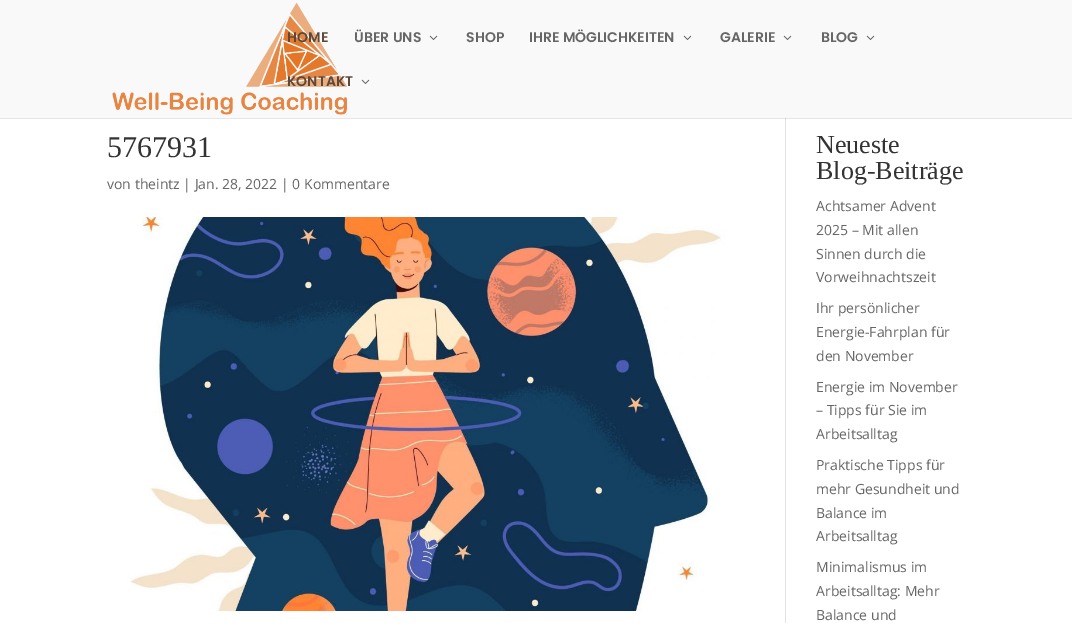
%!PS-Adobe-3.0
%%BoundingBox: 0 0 1072 623
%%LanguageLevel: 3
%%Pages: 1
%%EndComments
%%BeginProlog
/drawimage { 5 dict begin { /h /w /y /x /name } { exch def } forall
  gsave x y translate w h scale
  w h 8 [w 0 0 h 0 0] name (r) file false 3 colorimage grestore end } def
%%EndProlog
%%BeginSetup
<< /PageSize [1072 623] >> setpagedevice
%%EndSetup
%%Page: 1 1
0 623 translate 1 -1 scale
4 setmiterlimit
1 setgray
0 0 1072 623 rectfill
0.902 setgray
0 118 1072 1 rectfill
0.976 setgray
0 0 1072 118 rectfill
(images/1.raw) 112 2 235 113 drawimage
(images/2.raw) 429 35 9 5 drawimage
(images/2.raw) 683 35 9 5 drawimage
(images/2.raw) 783 35 9 5 drawimage
(images/2.raw) 866 35 9 5 drawimage
(images/2.raw) 361 79 9 5 drawimage
0.886 setgray
785 119 1 504 rectfill
0.796 setgray
785 118 1 1 rectfill
(images/3.raw) 126 217 599 394 drawimage
/Poppins-SemiBold [14 0 0 -14 0 0] selectfont
0.365 0.282 0.224 setrgbcolor
287 42 moveto (HOME) show
0.4 setgray
354 42 moveto (ÜBER UNS) show
466 42 moveto (SHOP) show
529 42 moveto (IHRE MÖGLICHKEITEN) show
720 42 moveto (GALERIE) show
821 42 moveto (BLOG) show
0.365 0.282 0.224 setrgbcolor
287 86 moveto (KONTAKT) show
/LiberationSerif-Regular [30 0 0 -30 0 0] selectfont
0.2 setgray
107 157 moveto (5767931) show
/OpenSans-Regular [14 0 0 -14 0 0] selectfont
0.4 setgray
107 189 moveto (von theintz | Jan. 28, 2022 | 0 Kommentare) show
/LiberationSerif-Regular [26 0 0 -26 0 0] selectfont
0.2 setgray
816 153 moveto (Neueste) show
816 179 moveto (Blog-Beiträge) show
/OpenSans-Regular [14 0 0 -14 0 0] selectfont
0.4 setgray
816 211 moveto (Achtsamer Advent) show
816 235 moveto (2025 – Mit allen) show
816 259 moveto (Sinnen durch die) show
816 282 moveto (Vorweihnachtszeit) show
816 313 moveto (Ihr persönlicher) show
816 337 moveto (Energie-Fahrplan für) show
816 361 moveto (den November) show
816 392 moveto (Energie im November) show
816 415 moveto (– Tipps für Sie im) show
816 439 moveto (Arbeitsalltag) show
816 470 moveto (Praktische Tipps für) show
816 494 moveto (mehr Gesundheit und) show
816 518 moveto (Balance im) show
816 541 moveto (Arbeitsalltag) show
816 572 moveto (Minimalismus im) show
816 596 moveto (Arbeitsalltag: Mehr) show
816 620 moveto (Balance und) show
showpage
%%EOF
